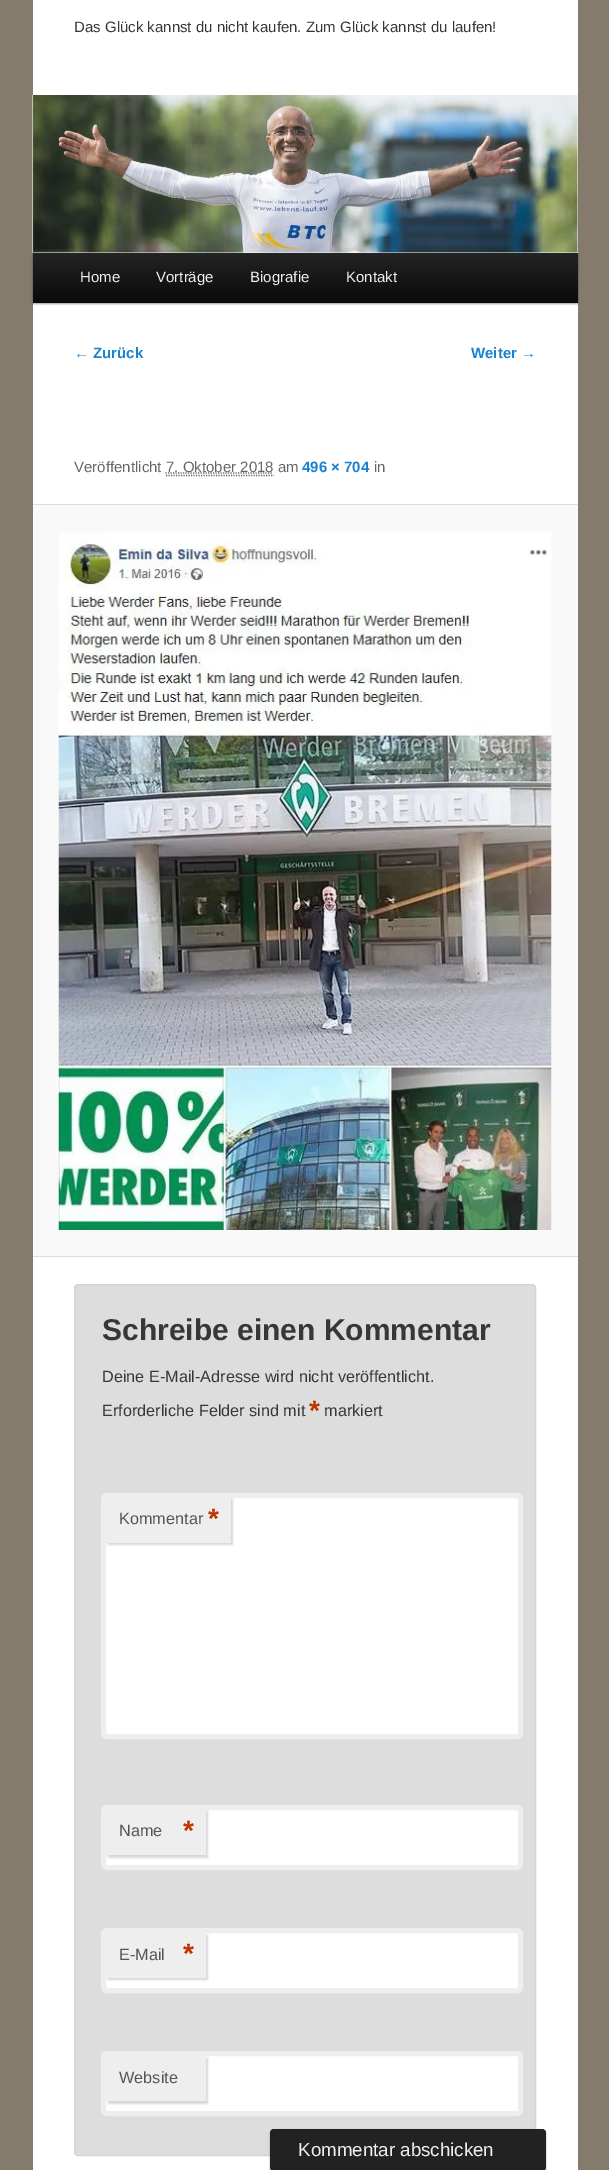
%!PS-Adobe-3.0
%%BoundingBox: 0 0 609 2170
%%LanguageLevel: 3
%%Pages: 1
%%EndComments
%%BeginProlog
/setalpha { dup .setfillconstantalpha .setstrokeconstantalpha } def
/rrect { 5 dict begin { /r /h /w /y /x } { exch def } forall
  x r add y moveto x w add y 2 copy h add r arct x w add y h add x 1 index r arct
  x y h add x y r arct x y 2 copy exch w add exch r arct closepath end } def
/softshadow { 12 dict begin { /a /b /q /h /w /y /x } { exch def } forall gsave /was 0 def
  9 -2 -9 { dup b mul 4 div /e exch def 1 sub .425 mul 2.718 exch exp 1 add a .99 .min exch div /now exch def
    1 1 now sub 1 was sub div sub setalpha /was now def
    w h .min e 2 mul add 0 gt { x e sub y e sub w e 2 mul add h e 2 mul add
      q e add b .6 mul add w h .min 2 div e add .min 0 .max rrect fill } if } for grestore end } def
/drawimage { 5 dict begin { /h /w /y /x /name } { exch def } forall
  gsave x y translate w h scale
  w h 8 [w 0 0 h 0 0] name (r) file false 3 colorimage grestore end } def
%%EndProlog
%%BeginSetup
<< /PageSize [609 2170] /PageUsesTransparency true >> setpagedevice
%%EndSetup
%%Page: 1 1
0 .pushpdf14devicefilter
0 2170 translate 1 -1 scale
4 setmiterlimit
0.518 0.482 0.424 setrgbcolor
0 0 609 2170 rectfill
1 setgray
33 0 545 2170 rectfill
0 setgray
33 254 545 50 0 1 0.4 softshadow
(images/1.raw) 32 95 546 158 drawimage
gsave newpath 33 253 moveto 578 253 lineto 578 303 lineto 33 303 lineto closepath clip newpath
<< /ShadingType 2 /ColorSpace /DeviceRGB /Coords [305 252 305 303] /Extend [true true] /Function << /FunctionType 2 /Domain [0 1] /C0 [0.145 0.145 0.145] /C1 [0.039 0.039 0.039] /N 1 >> >> shfill grestore
0.4 setgray
1.2 setlinewidth
[1.25 1.25] 0 setdash
newpath 166 475.5 moveto 274 475.5 lineto stroke
newpath 165.5 473 moveto 273 473 lineto stroke
0.976 setgray
33 505 545 751 rectfill
0.867 setgray
33 504 545 1 rectfill
33 1256 545 1 rectfill
(images/2.raw) 58 532 494 698 drawimage
74.5 1284.5 461 871 3.5 rrect gsave fill grestore
0.827 setgray
1 setlinewidth
[] 0 setdash
stroke
1 setgray
103.5 1495.5 417 241 3.5 rrect gsave fill grestore
0.933 setgray
5 setlinewidth
stroke
0.8 setgray
108 1499 125 46 0 1 0.8 softshadow
0.933 setgray
106 1498 125 45 rectfill
1 setgray
103.5 1807.5 417 60 3.5 rrect gsave fill grestore
0.933 setgray
stroke
0.8 setgray
108 1811 100 47 0 1 0.8 softshadow
0.933 setgray
106 1810 100 45 rectfill
1 setgray
103.5 1930.5 417 60 3.5 rrect gsave fill grestore
0.933 setgray
stroke
0.8 setgray
108 1935 100 45 0 1 0.8 softshadow
0.933 setgray
106 1933 100 45 rectfill
1 setgray
103.5 2053.5 417 60 3.5 rrect gsave fill grestore
0.933 setgray
stroke
0.8 setgray
108 2058 100 46 0 1 0.8 softshadow
0.933 setgray
106 2056 100 45 rectfill
0 setgray
270 2130 276 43 4 1 0.3 softshadow
0.133 setgray
270 2129 276 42 4 rrect fill
/LiberationSans-Regular [15 0 0 -15 0 0] selectfont
0.216 setgray
74 32 moveto (Das Glück kannst du nicht kaufen. Zum Glück kannst du laufen!) show
0.933 setgray
80 282 moveto (Home) show
156 282 moveto (Vorträge) show
250 282 moveto (Biografie) show
346 282 moveto (Kontakt) show
/LiberationSans-Bold [15 0 0 -15 0 0] selectfont
0.098 0.51 0.82 setrgbcolor
74 358 moveto (← Zurück) show
471 358 moveto (Weiter →) show
/LiberationSans-Regular [15 0 0 -15 0 0] selectfont
0.4 setgray
74 472 moveto (Veröffentlicht) show
166 472 moveto (7. Oktober 2018 am) show
/LiberationSans-Bold [15 0 0 -15 0 0] selectfont
0.098 0.51 0.82 setrgbcolor
302 472 moveto (496 × 704) show
/LiberationSans-Regular [15 0 0 -15 0 0] selectfont
0.4 setgray
374 472 moveto (in) show
/LiberationSans-Bold [30 0 0 -30 0 0] selectfont
0.216 setgray
102 1340 moveto (Schreibe einen Kommentar) show
/LiberationSans-Regular [16.25 0 0 -16.25 0 0] selectfont
102 1382 moveto (Deine E-Mail-Adresse wird nicht veröffentlicht.) show
102 1416 moveto (Erforderliche Felder sind mit) show
/LiberationSans-Bold [28 0 0 -28 0 0] selectfont
0.741 0.208 0 setrgbcolor
309 1420 moveto (*) show
/LiberationSans-Regular [16.25 0 0 -16.25 0 0] selectfont
0.216 setgray
324 1416 moveto (markiert) show
0.333 setgray
119 1524 moveto (Kommentar) show
/LiberationSans-Bold [28 0 0 -28 0 0] selectfont
0.741 0.208 0 setrgbcolor
208 1528 moveto (*) show
/LiberationSans-Regular [16.25 0 0 -16.25 0 0] selectfont
0.333 setgray
119 1836 moveto (Name) show
/LiberationSans-Bold [28 0 0 -28 0 0] selectfont
0.741 0.208 0 setrgbcolor
183 1840 moveto (*) show
/LiberationSans-Regular [16.25 0 0 -16.25 0 0] selectfont
0.333 setgray
119 1960 moveto (E-Mail) show
/LiberationSans-Bold [28 0 0 -28 0 0] selectfont
0.741 0.208 0 setrgbcolor
183 1963 moveto (*) show
/LiberationSans-Regular [16.25 0 0 -16.25 0 0] selectfont
0.333 setgray
119 2083 moveto (Website) show
/LiberationSans-Regular [18.75 0 0 -18.75 0 0] selectfont
0.933 setgray
298 2156 moveto (Kommentar abschicken) show
.poppdf14devicefilter showpage
%%EOF
